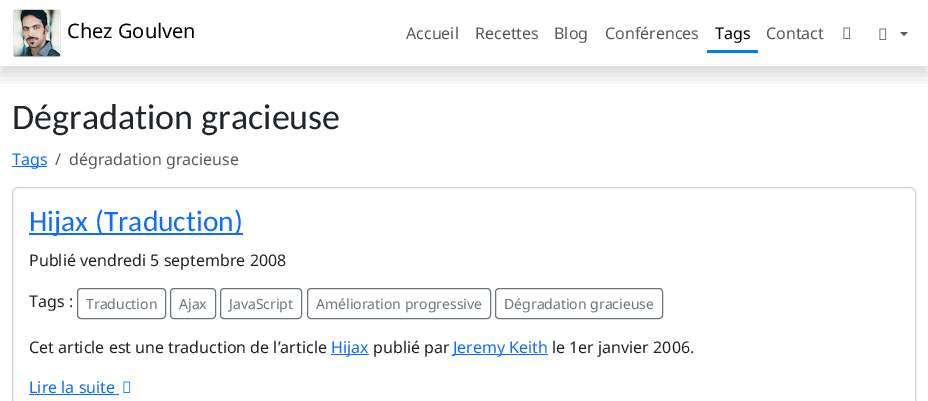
%!PS-Adobe-3.0
%%BoundingBox: 0 0 928 401
%%LanguageLevel: 3
%%Pages: 1
%%EndComments
%%BeginProlog
/setalpha { dup .setfillconstantalpha .setstrokeconstantalpha } def
/rrect { 5 dict begin { /r /h /w /y /x } { exch def } forall
  x r add y moveto x w add y 2 copy h add r arct x w add y h add x 1 index r arct
  x y h add x y r arct x y 2 copy exch w add exch r arct closepath end } def
/softshadow { 12 dict begin { /a /b /q /h /w /y /x } { exch def } forall gsave /was 0 def
  9 -2 -9 { dup b mul 4 div /e exch def 1 sub .425 mul 2.718 exch exp 1 add a .99 .min exch div /now exch def
    1 1 now sub 1 was sub div sub setalpha /was now def
    w h .min e 2 mul add 0 gt { x e sub y e sub w e 2 mul add h e 2 mul add
      q e add b .6 mul add w h .min 2 div e add .min 0 .max rrect fill } if } for grestore end } def
/drawimage { 5 dict begin { /h /w /y /x /name } { exch def } forall
  gsave x y translate w h scale
  w h 8 [w 0 0 h 0 0] name (r) file false 3 colorimage grestore end } def
%%EndProlog
%%BeginSetup
<< /PageSize [928 401] /PageUsesTransparency true >> setpagedevice
%%EndSetup
%%Page: 1 1
0 .pushpdf14devicefilter
0 401 translate 1 -1 scale
4 setmiterlimit
1 setgray
0 0 928 401 rectfill
gsave
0 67 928 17 rectclip
0 setgray
0 8 928 67 0 8 0.15 softshadow
grestore
0.871 0.886 0.902 setrgbcolor
0 66 928 1 rectfill
(images/1.raw) 12 8 49 50 drawimage
0 0.482 1 setrgbcolor
707 50 51 3 rectfill
(images/2.raw) 843 27 8 12 drawimage
(images/2.raw) 879 28 8 12 drawimage
0.349 setgray
newpath 900 32 moveto 908 32 lineto 904 36 lineto closepath fill
0.051 0.431 0.992 setrgbcolor
12 166 35 1 rectfill
0.824 setgray
12.5 187.5 903 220 5.5 rrect stroke
0.051 0.431 0.992 setrgbcolor
29 233 214 2 rectfill
0.424 0.459 0.49 setrgbcolor
77.5 288.5 88 30 3.5 rrect stroke
170.5 288.5 45 30 3.5 rrect stroke
220.5 288.5 81 30 3.5 rrect stroke
307.5 288.5 183 30 3.5 rrect stroke
495.5 288.5 167 30 3.5 rrect stroke
0.051 0.431 0.992 setrgbcolor
331 354 38 1 rectfill
453 354 95 1 rectfill
29 394 90 1 rectfill
(images/3.raw) 123 381 8 12 drawimage
/NotoSans-Regular [20 0 0 -20 0 0] selectfont
0 setgray
67 38 moveto (Chez Goulven) show
/NotoSans-Regular [16 0 0 -16 0 0] selectfont
0.349 setgray
406 39 moveto (Accueil) show
475 39 moveto (Recettes) show
554 39 moveto (Blog) show
605 39 moveto (Conférences) show
0 setgray
715 39 moveto (Tags) show
0.349 setgray
766 39 moveto (Contact) show
/Carlito-Regular [36 0 0 -36 0 0] selectfont
0.129 0.145 0.161 setrgbcolor
12 129 moveto (Dégradation gracieuse) show
/NotoSans-Regular [16 0 0 -16 0 0] selectfont
0.051 0.431 0.992 setrgbcolor
12 165 moveto (Tags) show
0.349 0.361 0.373 setrgbcolor
55 165 moveto (/) show
69 165 moveto (dégradation gracieuse) show
/Carlito-Regular [29.5 0 0 -29.5 0 0] selectfont
0.051 0.431 0.992 setrgbcolor
29 231 moveto (Hijax \(Traduction\)) show
/NotoSans-Regular [16 0 0 -16 0 0] selectfont
0.129 0.145 0.161 setrgbcolor
29 266 moveto (Publié vendredi 5 septembre 2008) show
29 307 moveto (Tags :) show
/NotoSans-Regular [14 0 0 -14 0 0] selectfont
0.424 0.459 0.49 setrgbcolor
86 309 moveto (Traduction) show
179 309 moveto (Ajax) show
229 309 moveto (JavaScript) show
316 309 moveto (Amélioration progressive) show
504 309 moveto (Dégradation gracieuse) show
/NotoSans-Regular [16 0 0 -16 0 0] selectfont
0.129 0.145 0.161 setrgbcolor
29 353 moveto (Cet article est une traduction de l’article) show
0.051 0.431 0.992 setrgbcolor
331 353 moveto (Hijax) show
0.129 0.145 0.161 setrgbcolor
373 353 moveto (publié par) show
0.051 0.431 0.992 setrgbcolor
453 353 moveto (Jeremy Keith) show
0.129 0.145 0.161 setrgbcolor
552 353 moveto (le 1er janvier 2006.) show
0.051 0.431 0.992 setrgbcolor
29 393 moveto (Lire la suite) show
.poppdf14devicefilter showpage
%%EOF
